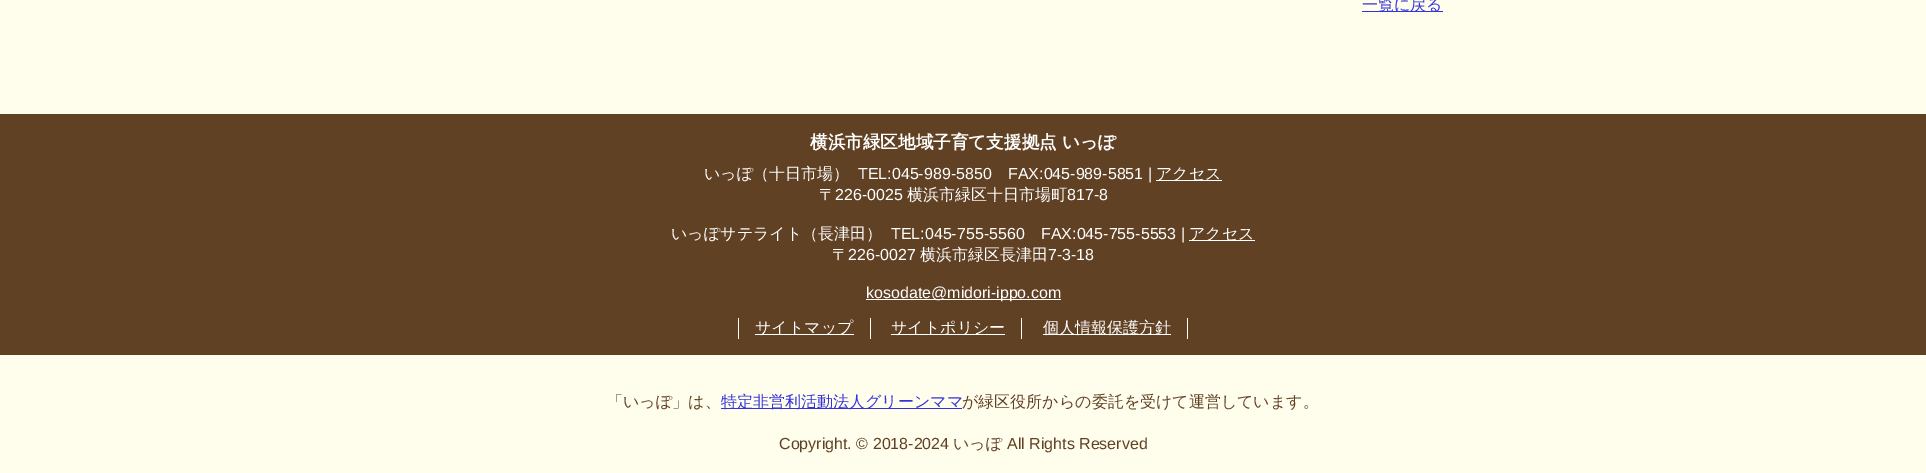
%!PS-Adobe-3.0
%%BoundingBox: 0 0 1926 473
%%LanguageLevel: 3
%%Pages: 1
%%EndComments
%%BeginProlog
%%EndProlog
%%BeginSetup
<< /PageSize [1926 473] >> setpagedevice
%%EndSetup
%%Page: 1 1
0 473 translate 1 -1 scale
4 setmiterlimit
1 0.992 0.925 setrgbcolor
0 0 1926 473 rectfill
0.2 0.2 0.867 setrgbcolor
1362 11 81 1 rectfill
0.38 0.255 0.141 setrgbcolor
0 114 1926 241 rectfill
1 setgray
1156 180 66 1 rectfill
1189 240 66 1 rectfill
866 299 195 1 rectfill
870 318 1 21 rectfill
738 318 1 21 rectfill
755 334 99 1 rectfill
1021 318 1 21 rectfill
891 334 114 1 rectfill
1187 318 1 21 rectfill
1043 334 128 1 rectfill
0.2 0.2 0.867 setrgbcolor
721 408 241 1 rectfill
/WenQuanYiZenHei-Medium [16 0 0 -16 0 0] selectfont
1362 10 moveto (一覧に戻る) show
/WenQuanYiZenHei-Bold [17.6 0 0 -17.6 0 0] selectfont
1 setgray
810 148 moveto (横浜市緑区地域子育て支援拠点 いっぽ) show
/WenQuanYiZenHei-Medium [16 0 0 -16 0 0] selectfont
704 179 moveto (いっぽ（十日市場）) show
/LiberationSans-Regular [16 0 0 -16 0 0] selectfont
858 179 moveto (TEL:045-989-5850) show
1008 179 moveto (FAX:045-989-5851 |) show
/WenQuanYiZenHei-Medium [16 0 0 -16 0 0] selectfont
1156 179 moveto (アクセス) show
819 200 moveto (〒) show
/LiberationSans-Regular [16 0 0 -16 0 0] selectfont
835 200 moveto (226-0025) show
/WenQuanYiZenHei-Medium [16 0 0 -16 0 0] selectfont
907 200 moveto (横浜市緑区十日市場町) show
/LiberationSans-Regular [16 0 0 -16 0 0] selectfont
1067 200 moveto (817-8) show
/WenQuanYiZenHei-Medium [16 0 0 -16 0 0] selectfont
671 239 moveto (いっぽサテライト（長津田）) show
/LiberationSans-Regular [16 0 0 -16 0 0] selectfont
891 239 moveto (TEL:045-755-5560) show
1041 239 moveto (FAX:045-755-5553 |) show
/WenQuanYiZenHei-Medium [16 0 0 -16 0 0] selectfont
1189 239 moveto (アクセス) show
832 260 moveto (〒) show
/LiberationSans-Regular [16 0 0 -16 0 0] selectfont
848 260 moveto (226-0027) show
/WenQuanYiZenHei-Medium [16 0 0 -16 0 0] selectfont
920 260 moveto (横浜市緑区長津田) show
/LiberationSans-Regular [16 0 0 -16 0 0] selectfont
1048 260 moveto (7-3-18) show
866 298 moveto (kosodate@midori-ippo.com) show
/WenQuanYiZenHei-Medium [16 0 0 -16 0 0] selectfont
755 333 moveto (サイトマップ) show
891 333 moveto (サイトポリシー) show
1043 333 moveto (個人情報保護方針) show
0.38 0.255 0.141 setrgbcolor
607 407 moveto (「いっぽ」は、) show
0.2 0.2 0.867 setrgbcolor
721 407 moveto (特定非営利活動法人グリーンママ) show
0.38 0.255 0.141 setrgbcolor
962 407 moveto (が緑区役所からの委託を受けて運営しています。) show
/LiberationSans-Regular [16 0 0 -16 0 0] selectfont
779 449 moveto (Copyright. © 2018-2024) show
/WenQuanYiZenHei-Medium [16 0 0 -16 0 0] selectfont
953 449 moveto (いっぽ) show
/LiberationSans-Regular [16 0 0 -16 0 0] selectfont
1007 449 moveto (All Rights Reserved) show
showpage
%%EOF
